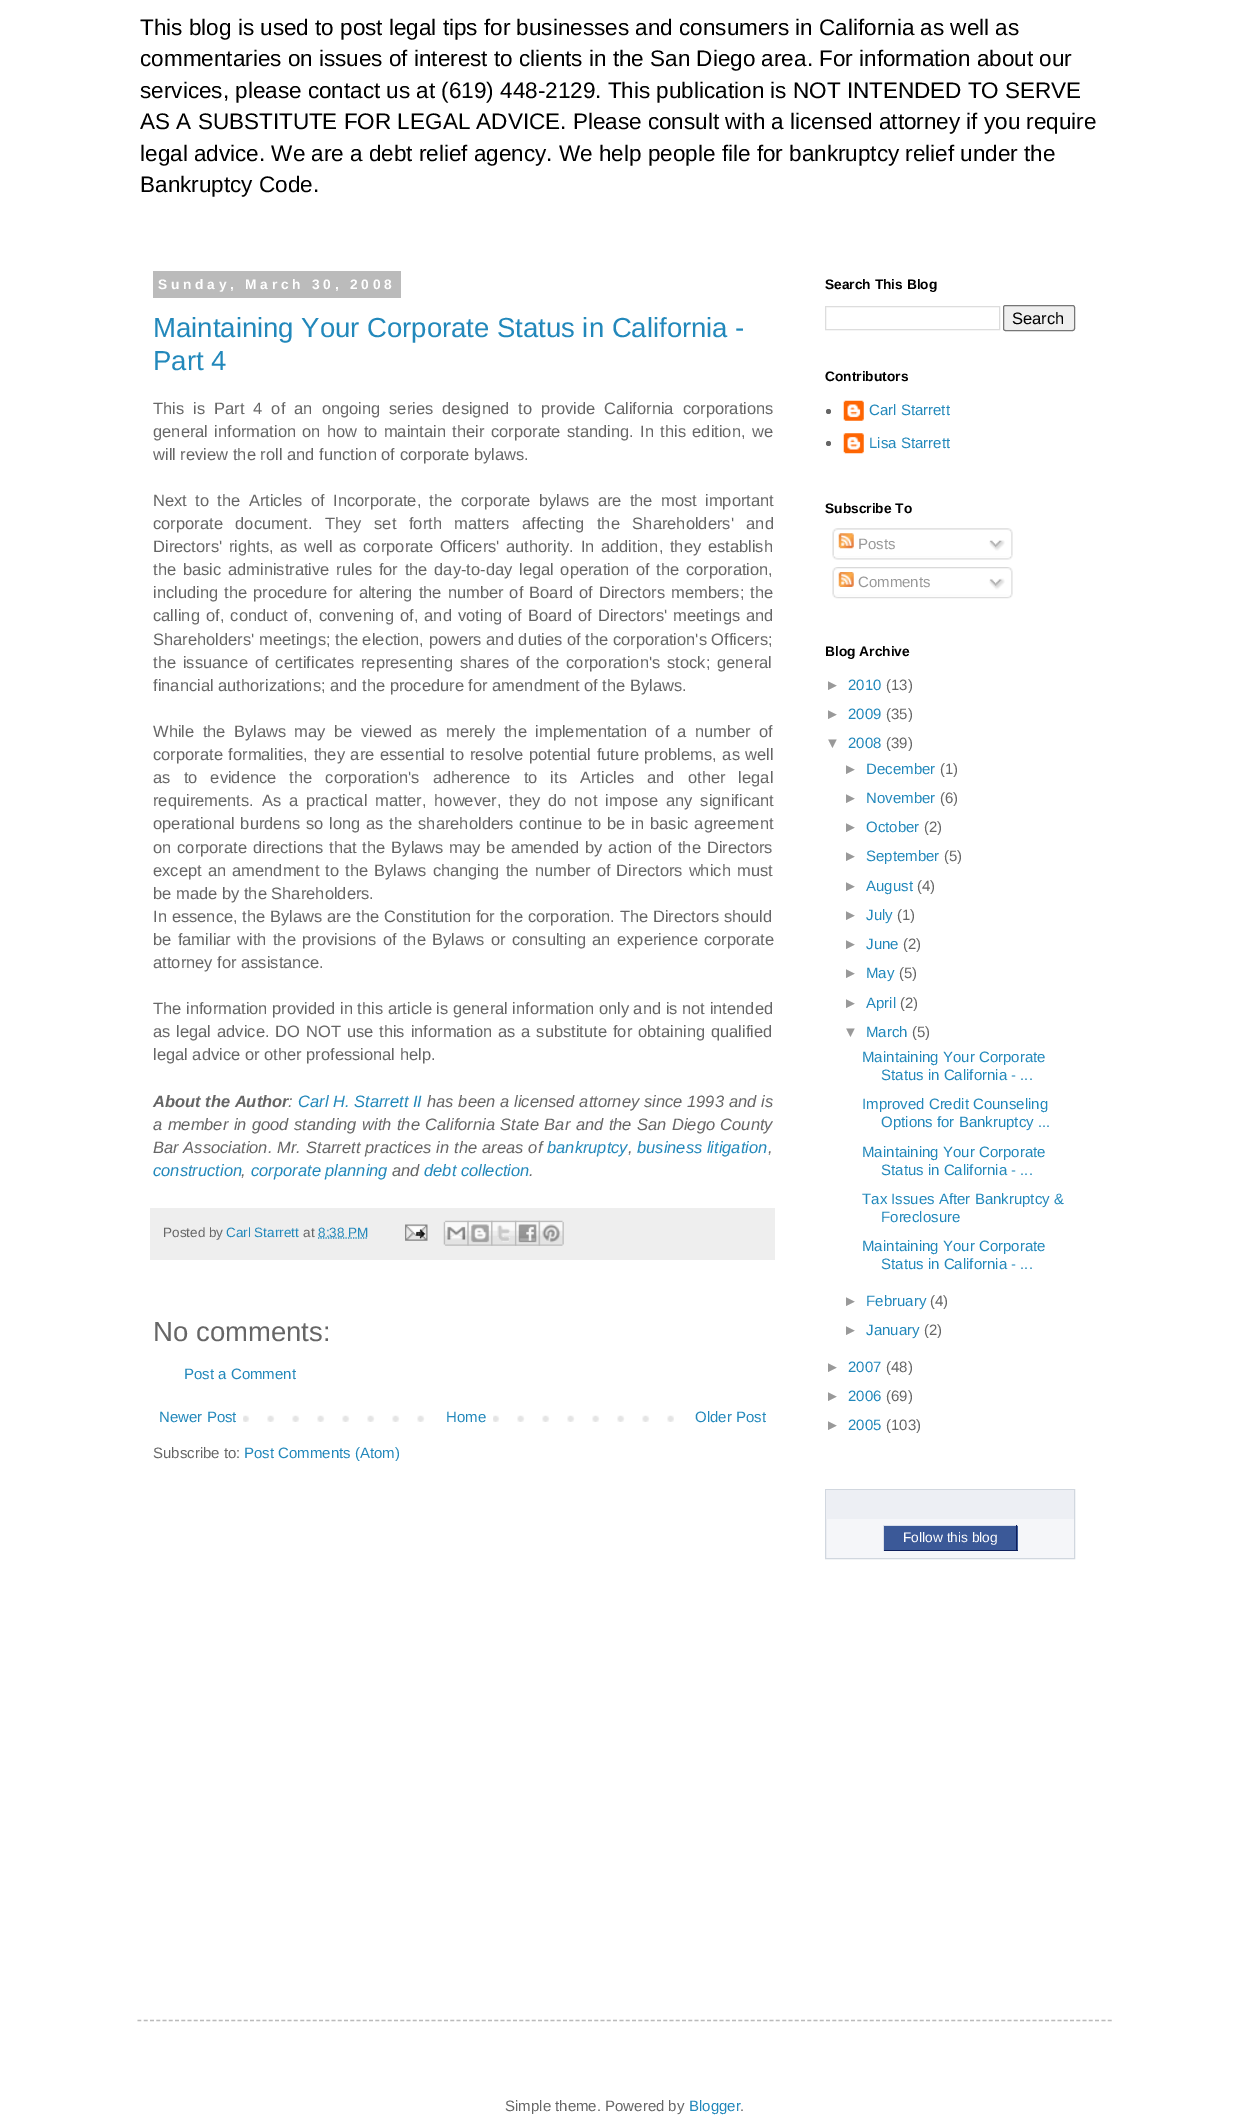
%!PS-Adobe-3.0
%%BoundingBox: 0 0 1250 2126
%%LanguageLevel: 3
%%Pages: 1
%%EndComments
%%BeginProlog
/rrect { 5 dict begin { /r /h /w /y /x } { exch def } forall
  x r add y moveto x w add y 2 copy h add r arct x w add y h add x 1 index r arct
  x y h add x y r arct x y 2 copy exch w add exch r arct closepath end } def
/drawimage { 5 dict begin { /h /w /y /x /name } { exch def } forall
  gsave x y translate w h scale
  w h 8 [w 0 0 h 0 0] name (r) file false 3 colorimage grestore end } def
%%EndProlog
%%BeginSetup
<< /PageSize [1250 2126] >> setpagedevice
%%EndSetup
%%Page: 1 1
0 2126 translate 1 -1 scale
4 setmiterlimit
1 setgray
0 0 1250 2126 rectfill
0.733 setgray
153 271 248 27 rectfill
0.933 setgray
150 1208 625 52 rectfill
0.133 0.533 0.733 setrgbcolor
1.2 setlinewidth
[1.25 1.25] 0 setdash
newpath 318 1238 moveto 368 1238 lineto stroke
(images/1.raw) 405 1224 23 17 drawimage
(images/2.raw) 443 1220 26 26 drawimage
(images/3.raw) 467 1220 26 26 drawimage
(images/4.raw) 491 1220 26 26 drawimage
(images/5.raw) 515 1220 25 26 drawimage
(images/6.raw) 538 1220 26 26 drawimage
(images/7.raw) 243 1415 431 7 drawimage
1 setgray
442 1415 51 7 rectfill
0.867 setgray
1 setlinewidth
[] 0 setdash
825.5 306.5 174 23 rectstroke
0.937 setgray
1003.5 305.5 71 25 2 rrect gsave fill grestore
0.463 setgray
stroke
0.4 setgray
newpath 828.5 411.5 2.5 0 360 arc closepath fill
(images/8.raw) 843 400 21 21 drawimage
newpath 828.5 443.5 2.5 0 360 arc closepath fill
(images/9.raw) 843 433 21 21 drawimage
(images/10.raw) 832 528 181 28 drawimage
(images/11.raw) 838 533 16 16 drawimage
(images/12.raw) 989 540 16 11 drawimage
(images/13.raw) 832 556 181 4 drawimage
(images/14.raw) 832 567 181 28 drawimage
(images/15.raw) 838 572 16 15 drawimage
(images/16.raw) 989 578 16 12 drawimage
(images/17.raw) 832 594 181 5 drawimage
0.961 0.965 0.976 setrgbcolor
826 1519 248 39 rectfill
0.82 0.843 0.875 setrgbcolor
825.5 1489.5 249 69 rectstroke
0.929 0.937 0.957 setrgbcolor
826 1490 248 29 rectfill
0.231 0.349 0.596 setrgbcolor
884 1526 134 24 rectfill
0.851 0.875 0.918 setrgbcolor
883 1525 135 1 rectfill
0.055 0.122 0.357 setrgbcolor
1016 1525 1 26 rectfill
883 1550 135 1 rectfill
0.851 0.875 0.918 setrgbcolor
883 1525 1 26 rectfill
0.733 setgray
1.2 setlinewidth
[3.75 2.51] 0 setdash
newpath 137.5 2020.5 moveto 1112.5 2020.5 lineto stroke
/LiberationSans-Regular [22.5 0 0 -22.5 0 0] selectfont
0 setgray
140 35 moveto (This blog is used to post legal tips for businesses and consumers in California as well as) show
140 66 moveto (commentaries on issues of interest to clients in the San Diego area. For information about our) show
140 98 moveto (services, please contact us at \(619\) 448-2129. This publication is NOT INTENDED TO SERVE) show
140 129 moveto (AS A SUBSTITUTE FOR LEGAL ADVICE. Please consult with a licensed attorney if you require) show
140 161 moveto (legal advice. We are a debt relief agency. We help people file for bankruptcy relief under the) show
140 192 moveto (Bankruptcy Code.) show
/LiberationSans-Bold [13.75 0 0 -13.75 0 0] selectfont
1 setgray
158 289 moveto 3.75 0 (Sunday, March 30, 2008) ashow
/LiberationSans-Regular [27.5 0 0 -27.5 0 0] selectfont
0.133 0.533 0.733 setrgbcolor
153 337 moveto (Maintaining Your Corporate Status in California -) show
153 370 moveto (Part 4) show
/LiberationSans-Regular [16.5 0 0 -16.5 0 0] selectfont
0.4 setgray
153 414 moveto 4.4 0 32 (This is Part 4 of an ongoing series designed to provide California corporations) widthshow
153 437 moveto 1.75 0 32 (general information on how to maintain their corporate standing. In this edition, we) widthshow
153 460 moveto (will review the roll and function of corporate bylaws.) show
153 506 moveto 3.75 0 32 (Next to the Articles of Incorporate, the corporate bylaws are the most important) widthshow
153 529 moveto 8 0 32 (corporate document. They set forth matters affecting the Shareholders' and) widthshow
153 552 moveto 2 0 32 (Directors' rights, as well as corporate Officers' authority. In addition, they establish) widthshow
153 575 moveto 2.1 0 32 (the basic administrative rules for the day-to-day legal operation of the corporation,) widthshow
153 598 moveto 1.4 0 32 (including the procedure for altering the number of Board of Directors members; the) widthshow
153 621 moveto 1.5 0 32 (calling of, conduct of, convening of, and voting of Board of Directors' meetings and) widthshow
153 645 moveto (Shareholders' meetings; the election, powers and duties of the corporation's Officers;) show
153 668 moveto 2.25 0 32 (the issuance of certificates representing shares of the corporation's stock; general) widthshow
153 691 moveto (financial authorizations; and the procedure for amendment of the Bylaws.) show
153 737 moveto 3.75 0 32 (While the Bylaws may be viewed as merely the implementation of a number of) widthshow
153 760 moveto 1 0 32 (corporate formalities, they are essential to resolve potential future problems, as well) widthshow
153 783 moveto 8.5 0 32 (as to evidence the corporation's adherence to its Articles and other legal) widthshow
153 806 moveto 3.25 0 32 (requirements. As a practical matter, however, they do not impose any significant) widthshow
153 829 moveto 1.25 0 32 (operational burdens so long as the shareholders continue to be in basic agreement) widthshow
153 853 moveto 1.25 0 32 (on corporate directions that the Bylaws may be amended by action of the Directors) widthshow
153 876 moveto 1.5 0 32 (except an amendment to the Bylaws changing the number of Directors which must) widthshow
153 899 moveto (be made by the Shareholders.) show
153 922 moveto 0.25 0 32 (In essence, the Bylaws are the Constitution for the corporation. The Directors should) widthshow
153 945 moveto 1.75 0 32 (be familiar with the provisions of the Bylaws or consulting an experience corporate) widthshow
153 968 moveto (attorney for assistance.) show
153 1014 moveto (The information provided in this article is general information only and is not intended) show
153 1037 moveto 1.3 0 32 (as legal advice. DO NOT use this information as a substitute for obtaining qualified) widthshow
153 1060 moveto (legal advice or other professional help.) show
/LiberationSans-BoldItalic [16.5 0 0 -16.5 0 0] selectfont
153 1107 moveto (About the Author) show
/LiberationSans-Italic [16.5 0 0 -16.5 0 0] selectfont
288 1107 moveto (:) show
0.133 0.533 0.733 setrgbcolor
298 1107 moveto (Carl H.) show
354 1107 moveto (Starrett II) show
0.4 setgray
427 1107 moveto 0.25 0 32 (has been a licensed attorney since 1993 and is) widthshow
153 1130 moveto 0.9 0 32 (a member in good standing with the California State Bar and the San Diego County) widthshow
153 1153 moveto (Bar Association. Mr.) show
306 1153 moveto (Starrett) show
365 1153 moveto 0.5 0 32 (practices in the areas of) widthshow
0.133 0.533 0.733 setrgbcolor
547 1153 moveto (bankruptcy) show
0.4 setgray
628 1153 moveto (,) show
0.133 0.533 0.733 setrgbcolor
637 1153 moveto (business litigation) show
0.4 setgray
768 1153 moveto (,) show
0.133 0.533 0.733 setrgbcolor
153 1176 moveto (construction) show
0.4 setgray
241 1176 moveto (,) show
0.133 0.533 0.733 setrgbcolor
251 1176 moveto (corporate planning) show
0.4 setgray
392 1176 moveto (and) show
0.133 0.533 0.733 setrgbcolor
424 1176 moveto (debt collection) show
0.4 setgray
529 1176 moveto (.) show
/LiberationSans-Regular [13.5 0 0 -13.5 0 0] selectfont
163 1237 moveto (Posted by) show
0.133 0.533 0.733 setrgbcolor
226 1237 moveto (Carl Starrett) show
0.4 setgray
303 1237 moveto (at) show
0.133 0.533 0.733 setrgbcolor
318 1237 moveto (8:38 PM) show
/LiberationSans-Regular [27.5 0 0 -27.5 0 0] selectfont
0.4 setgray
153 1341 moveto (No comments:) show
/LiberationSans-Regular [15 0 0 -15 0 0] selectfont
0.133 0.533 0.733 setrgbcolor
184 1379 moveto (Post a Comment) show
159 1422 moveto (Newer Post) show
446 1422 moveto (Home) show
695 1422 moveto (Older Post) show
0.4 setgray
153 1458 moveto (Subscribe to:) show
0.133 0.533 0.733 setrgbcolor
244 1458 moveto (Post Comments \(Atom\)) show
/LiberationSans-Bold [13.75 0 0 -13.75 0 0] selectfont
0 setgray
825 289 moveto (Search This Blog) show
/LiberationSans-Regular [16.5 0 0 -16.5 0 0] selectfont
1012 324 moveto (Search) show
/LiberationSans-Bold [13.75 0 0 -13.75 0 0] selectfont
825 381 moveto (Contributors) show
/LiberationSans-Regular [15 0 0 -15 0 0] selectfont
0.133 0.533 0.733 setrgbcolor
869 415 moveto (Carl Starrett) show
869 448 moveto (Lisa Starrett) show
/LiberationSans-Bold [13.75 0 0 -13.75 0 0] selectfont
0 setgray
825 513 moveto (Subscribe To) show
/LiberationSans-Regular [15 0 0 -15 0 0] selectfont
0.6 setgray
858 549 moveto (Posts) show
858 587 moveto (Comments) show
/LiberationSans-Bold [13.75 0 0 -13.75 0 0] selectfont
0 setgray
825 656 moveto (Blog Archive) show
/LiberationSans-Regular [15 0 0 -15 0 0] selectfont
0.6 setgray
825 690 moveto (►) show
0.133 0.533 0.733 setrgbcolor
848 690 moveto (2010) show
0.4 setgray
886 690 moveto (\(13\)) show
0.6 setgray
825 719 moveto (►) show
0.133 0.533 0.733 setrgbcolor
848 719 moveto (2009) show
0.4 setgray
886 719 moveto (\(35\)) show
0.6 setgray
825 748 moveto (▼) show
0.133 0.533 0.733 setrgbcolor
848 748 moveto (2008) show
0.4 setgray
886 748 moveto (\(39\)) show
0.6 setgray
843 774 moveto (►) show
0.133 0.533 0.733 setrgbcolor
866 774 moveto (December) show
0.4 setgray
940 774 moveto (\(1\)) show
0.6 setgray
843 803 moveto (►) show
0.133 0.533 0.733 setrgbcolor
866 803 moveto (November) show
0.4 setgray
940 803 moveto (\(6\)) show
0.6 setgray
843 832 moveto (►) show
0.133 0.533 0.733 setrgbcolor
866 832 moveto (October) show
0.4 setgray
924 832 moveto (\(2\)) show
0.6 setgray
843 861 moveto (►) show
0.133 0.533 0.733 setrgbcolor
866 861 moveto (September) show
0.4 setgray
944 861 moveto (\(5\)) show
0.6 setgray
843 891 moveto (►) show
0.133 0.533 0.733 setrgbcolor
866 891 moveto (August) show
0.4 setgray
917 891 moveto (\(4\)) show
0.6 setgray
843 920 moveto (►) show
0.133 0.533 0.733 setrgbcolor
866 920 moveto (July) show
0.4 setgray
897 920 moveto (\(1\)) show
0.6 setgray
843 949 moveto (►) show
0.133 0.533 0.733 setrgbcolor
866 949 moveto (June) show
0.4 setgray
903 949 moveto (\(2\)) show
0.6 setgray
843 978 moveto (►) show
0.133 0.533 0.733 setrgbcolor
866 978 moveto (May) show
0.4 setgray
899 978 moveto (\(5\)) show
0.6 setgray
843 1008 moveto (►) show
0.133 0.533 0.733 setrgbcolor
866 1008 moveto (April) show
0.4 setgray
900 1008 moveto (\(2\)) show
0.6 setgray
843 1037 moveto (▼) show
0.133 0.533 0.733 setrgbcolor
866 1037 moveto (March) show
0.4 setgray
912 1037 moveto (\(5\)) show
0.133 0.533 0.733 setrgbcolor
862 1062 moveto (Maintaining Your Corporate) show
881 1080 moveto (Status in California - ...) show
862 1109 moveto (Improved Credit Counseling) show
881 1127 moveto (Options for Bankruptcy ...) show
862 1157 moveto (Maintaining Your Corporate) show
881 1175 moveto (Status in California - ...) show
862 1204 moveto (Tax Issues After Bankruptcy &) show
881 1222 moveto (Foreclosure) show
862 1251 moveto (Maintaining Your Corporate) show
881 1269 moveto (Status in California - ...) show
0.6 setgray
843 1306 moveto (►) show
0.133 0.533 0.733 setrgbcolor
866 1306 moveto (February) show
0.4 setgray
930 1306 moveto (\(4\)) show
0.6 setgray
843 1335 moveto (►) show
0.133 0.533 0.733 setrgbcolor
866 1335 moveto (January) show
0.4 setgray
924 1335 moveto (\(2\)) show
0.6 setgray
825 1372 moveto (►) show
0.133 0.533 0.733 setrgbcolor
848 1372 moveto (2007) show
0.4 setgray
886 1372 moveto (\(48\)) show
0.6 setgray
825 1401 moveto (►) show
0.133 0.533 0.733 setrgbcolor
848 1401 moveto (2006) show
0.4 setgray
886 1401 moveto (\(69\)) show
0.6 setgray
825 1430 moveto (►) show
0.133 0.533 0.733 setrgbcolor
848 1430 moveto (2005) show
0.4 setgray
886 1430 moveto (\(103\)) show
/LiberationSans-Regular [13.75 0 0 -13.75 0 0] selectfont
1 setgray
903 1542 moveto (Follow this blog) show
/LiberationSans-Regular [15 0 0 -15 0 0] selectfont
0.4 setgray
505 2111 moveto (Simple theme. Powered by) show
0.133 0.533 0.733 setrgbcolor
689 2111 moveto (Blogger) show
0.4 setgray
740 2111 moveto (.) show
showpage
%%EOF
